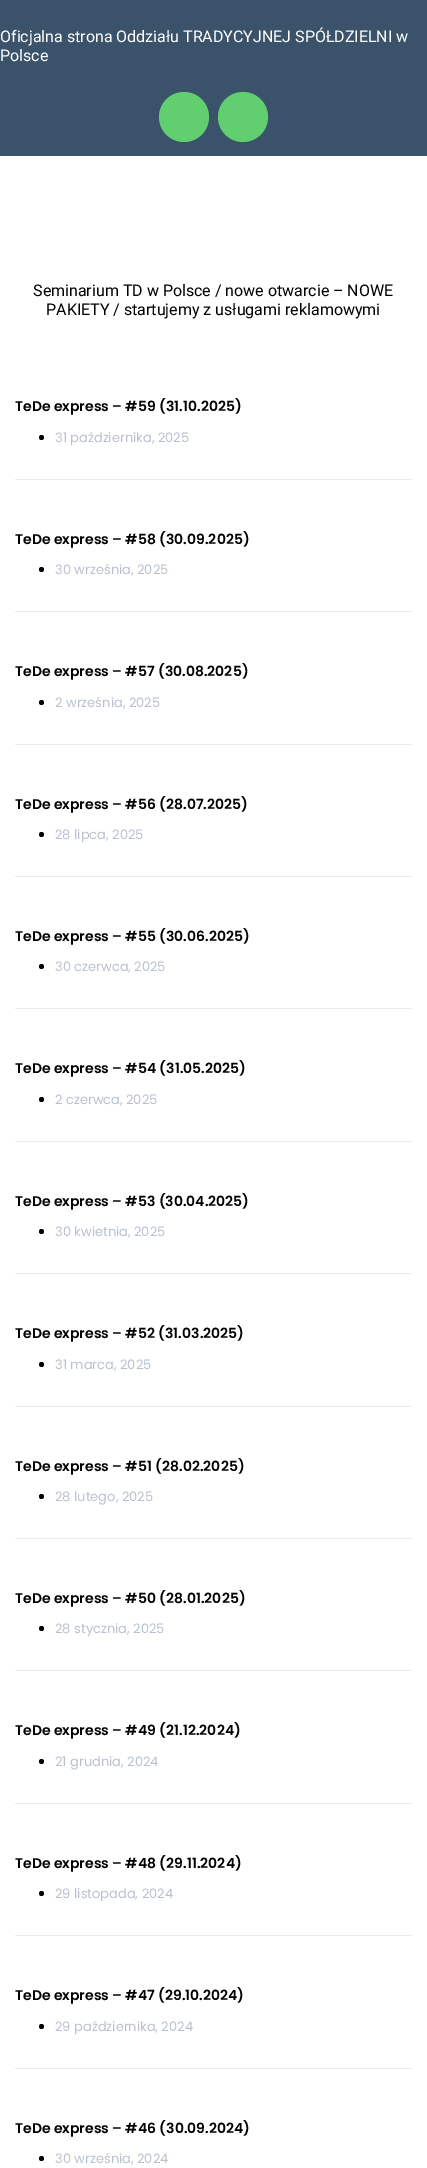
%!PS-Adobe-3.0
%%BoundingBox: 0 0 427 2168
%%LanguageLevel: 3
%%Pages: 1
%%EndComments
%%BeginProlog
%%EndProlog
%%BeginSetup
<< /PageSize [427 2168] >> setpagedevice
%%EndSetup
%%Page: 1 1
0 2168 translate 1 -1 scale
4 setmiterlimit
1 setgray
0 0 427 2168 rectfill
0.227 0.322 0.416 setrgbcolor
0 0 427 156 rectfill
0.38 0.808 0.439 setrgbcolor
newpath 184 117 25 0 360 arc closepath fill
newpath 243 117 25 0 360 arc closepath fill
0.922 setgray
15 479 397 1 rectfill
0 setgray
newpath 41.5 437.5 2.5 0 360 arc closepath fill
0.922 setgray
15 611 397 1 rectfill
0 setgray
newpath 41.5 569.5 2.5 0 360 arc closepath fill
0.922 setgray
15 744 397 1 rectfill
0 setgray
newpath 41.5 702.5 2.5 0 360 arc closepath fill
0.922 setgray
15 876 397 1 rectfill
0 setgray
newpath 41.5 834.5 2.5 0 360 arc closepath fill
0.922 setgray
15 1008 397 1 rectfill
0 setgray
newpath 41.5 966.5 2.5 0 360 arc closepath fill
0.922 setgray
15 1141 397 1 rectfill
0 setgray
newpath 41.5 1099.5 2.5 0 360 arc closepath fill
0.922 setgray
15 1273 397 1 rectfill
0 setgray
newpath 41.5 1231.5 2.5 0 360 arc closepath fill
0.922 setgray
15 1406 397 1 rectfill
0 setgray
newpath 41.5 1364.5 2.5 0 360 arc closepath fill
0.922 setgray
15 1538 397 1 rectfill
0 setgray
newpath 41.5 1496.5 2.5 0 360 arc closepath fill
0.922 setgray
15 1670 397 1 rectfill
0 setgray
newpath 41.5 1628.5 2.5 0 360 arc closepath fill
0.922 setgray
15 1803 397 1 rectfill
0 setgray
newpath 41.5 1761.5 2.5 0 360 arc closepath fill
0.922 setgray
15 1935 397 1 rectfill
0 setgray
newpath 41.5 1893.5 2.5 0 360 arc closepath fill
0.922 setgray
15 2068 397 1 rectfill
0 setgray
newpath 41.5 2026.5 2.5 0 360 arc closepath fill
newpath 41.5 2158.5 2.5 0 360 arc closepath fill
/Roboto-Regular [16 0 0 -16 0 0] selectfont
1 setgray
0 42 moveto (Oficjalna strona Oddziału TRADYCYJNEJ SPÓŁDZIELNI w) show
0 61 moveto (Polsce) show
0 setgray
33 296 moveto (Seminarium TD w Polsce / nowe otwarcie – NOWE) show
46 315 moveto (PAKIETY / startujemy z usługami reklamowymi) show
/Poppins-SemiBold [14 0 0 -14 0 0] selectfont
15 411 moveto (TeDe express – #59 \(31.10.2025\)) show
/Poppins-Regular [13 0 0 -13 0 0] selectfont
0.725 0.757 0.812 setrgbcolor
55 442 moveto (31 października, 2025) show
/Poppins-SemiBold [14 0 0 -14 0 0] selectfont
0 setgray
15 544 moveto (TeDe express – #58 \(30.09.2025\)) show
/Poppins-Regular [13 0 0 -13 0 0] selectfont
0.725 0.757 0.812 setrgbcolor
55 574 moveto (30 września, 2025) show
/Poppins-SemiBold [14 0 0 -14 0 0] selectfont
0 setgray
15 676 moveto (TeDe express – #57 \(30.08.2025\)) show
/Poppins-Regular [13 0 0 -13 0 0] selectfont
0.725 0.757 0.812 setrgbcolor
55 707 moveto (2 września, 2025) show
/Poppins-SemiBold [14 0 0 -14 0 0] selectfont
0 setgray
15 809 moveto (TeDe express – #56 \(28.07.2025\)) show
/Poppins-Regular [13 0 0 -13 0 0] selectfont
0.725 0.757 0.812 setrgbcolor
55 839 moveto (28 lipca, 2025) show
/Poppins-SemiBold [14 0 0 -14 0 0] selectfont
0 setgray
15 941 moveto (TeDe express – #55 \(30.06.2025\)) show
/Poppins-Regular [13 0 0 -13 0 0] selectfont
0.725 0.757 0.812 setrgbcolor
55 971 moveto (30 czerwca, 2025) show
/Poppins-SemiBold [14 0 0 -14 0 0] selectfont
0 setgray
15 1073 moveto (TeDe express – #54 \(31.05.2025\)) show
/Poppins-Regular [13 0 0 -13 0 0] selectfont
0.725 0.757 0.812 setrgbcolor
55 1104 moveto (2 czerwca, 2025) show
/Poppins-SemiBold [14 0 0 -14 0 0] selectfont
0 setgray
15 1206 moveto (TeDe express – #53 \(30.04.2025\)) show
/Poppins-Regular [13 0 0 -13 0 0] selectfont
0.725 0.757 0.812 setrgbcolor
55 1236 moveto (30 kwietnia, 2025) show
/Poppins-SemiBold [14 0 0 -14 0 0] selectfont
0 setgray
15 1338 moveto (TeDe express – #52 \(31.03.2025\)) show
/Poppins-Regular [13 0 0 -13 0 0] selectfont
0.725 0.757 0.812 setrgbcolor
55 1369 moveto (31 marca, 2025) show
/Poppins-SemiBold [14 0 0 -14 0 0] selectfont
0 setgray
15 1471 moveto (TeDe express – #51 \(28.02.2025\)) show
/Poppins-Regular [13 0 0 -13 0 0] selectfont
0.725 0.757 0.812 setrgbcolor
55 1501 moveto (28 lutego, 2025) show
/Poppins-SemiBold [14 0 0 -14 0 0] selectfont
0 setgray
15 1603 moveto (TeDe express – #50 \(28.01.2025\)) show
/Poppins-Regular [13 0 0 -13 0 0] selectfont
0.725 0.757 0.812 setrgbcolor
55 1633 moveto (28 stycznia, 2025) show
/Poppins-SemiBold [14 0 0 -14 0 0] selectfont
0 setgray
15 1735 moveto (TeDe express – #49 \(21.12.2024\)) show
/Poppins-Regular [13 0 0 -13 0 0] selectfont
0.725 0.757 0.812 setrgbcolor
55 1766 moveto (21 grudnia, 2024) show
/Poppins-SemiBold [14 0 0 -14 0 0] selectfont
0 setgray
15 1868 moveto (TeDe express – #48 \(29.11.2024\)) show
/Poppins-Regular [13 0 0 -13 0 0] selectfont
0.725 0.757 0.812 setrgbcolor
55 1898 moveto (29 listopada, 2024) show
/Poppins-SemiBold [14 0 0 -14 0 0] selectfont
0 setgray
15 2000 moveto (TeDe express – #47 \(29.10.2024\)) show
/Poppins-Regular [13 0 0 -13 0 0] selectfont
0.725 0.757 0.812 setrgbcolor
55 2031 moveto (29 października, 2024) show
/Poppins-SemiBold [14 0 0 -14 0 0] selectfont
0 setgray
15 2133 moveto (TeDe express – #46 \(30.09.2024\)) show
/Poppins-Regular [13 0 0 -13 0 0] selectfont
0.725 0.757 0.812 setrgbcolor
55 2163 moveto (30 września, 2024) show
showpage
%%EOF
